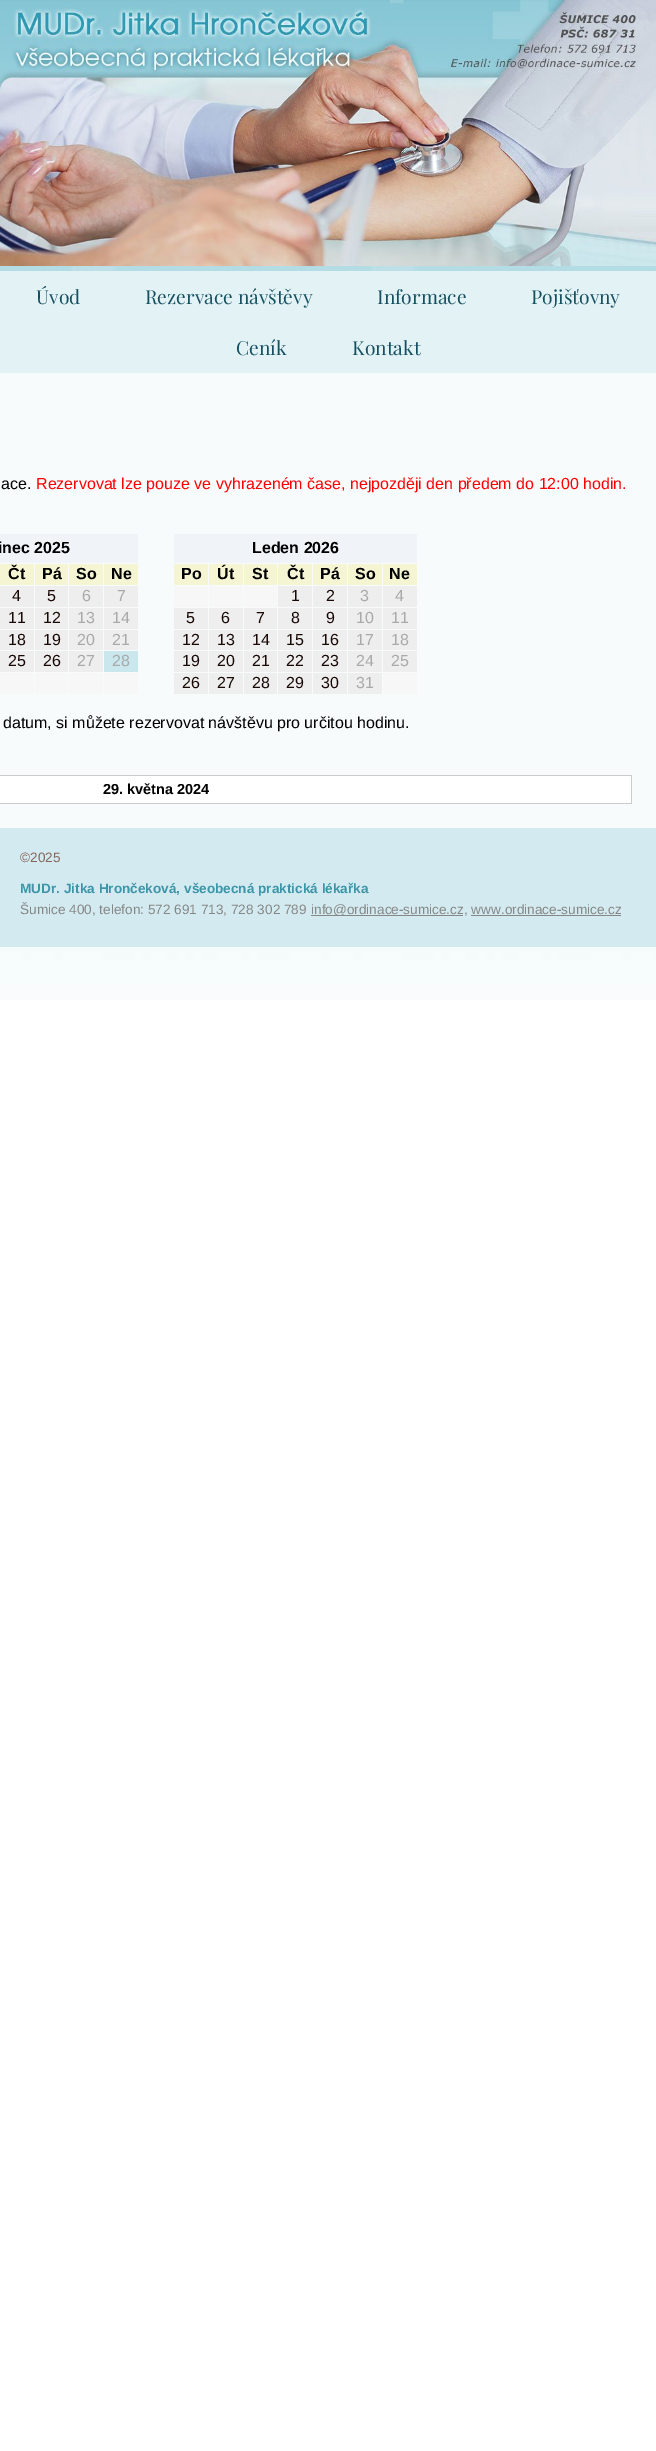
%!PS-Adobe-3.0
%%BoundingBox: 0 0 656 2451
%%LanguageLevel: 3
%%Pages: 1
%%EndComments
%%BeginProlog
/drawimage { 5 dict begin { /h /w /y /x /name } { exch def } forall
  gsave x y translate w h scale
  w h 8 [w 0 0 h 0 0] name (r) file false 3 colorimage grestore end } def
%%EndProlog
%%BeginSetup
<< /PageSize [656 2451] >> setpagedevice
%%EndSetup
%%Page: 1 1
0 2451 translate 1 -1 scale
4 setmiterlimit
1 setgray
0 0 656 2451 rectfill
(images/1.raw) 0 266 656 734 drawimage
(images/2.raw) 0 0 656 266 drawimage
0.886 0.949 0.961 setrgbcolor
0 271 656 102 rectfill
0.969 0.984 0.988 setrgbcolor
0 373 656 455 rectfill
0.941 0.957 0.976 setrgbcolor
0 534 138 29 rectfill
0.961 0.957 0.827 setrgbcolor
0 564 34 21 rectfill
35 564 33 21 rectfill
69 564 34 21 rectfill
104 564 34 21 rectfill
0.933 setgray
0 586 34 21 rectfill
35 586 33 21 rectfill
69 586 34 21 rectfill
104 586 34 21 rectfill
0 608 34 21 rectfill
35 608 33 21 rectfill
69 608 34 21 rectfill
104 608 34 21 rectfill
0 630 34 20 rectfill
35 630 33 20 rectfill
69 630 34 20 rectfill
104 630 34 20 rectfill
0 651 34 21 rectfill
35 651 33 21 rectfill
69 651 34 21 rectfill
0.792 0.906 0.929 setrgbcolor
104 651 34 21 rectfill
0.969 setgray
0 673 34 21 rectfill
35 673 33 21 rectfill
69 673 34 21 rectfill
104 673 34 21 rectfill
0.941 0.957 0.976 setrgbcolor
174 534 243 29 rectfill
0.961 0.957 0.827 setrgbcolor
174 564 34 21 rectfill
209 564 34 21 rectfill
244 564 33 21 rectfill
278 564 34 21 rectfill
313 564 34 21 rectfill
348 564 34 21 rectfill
383 564 34 21 rectfill
0.969 setgray
174 586 34 21 rectfill
209 586 34 21 rectfill
244 586 33 21 rectfill
0.933 setgray
278 586 34 21 rectfill
313 586 34 21 rectfill
348 586 34 21 rectfill
383 586 34 21 rectfill
174 608 34 21 rectfill
209 608 34 21 rectfill
244 608 33 21 rectfill
278 608 34 21 rectfill
313 608 34 21 rectfill
348 608 34 21 rectfill
383 608 34 21 rectfill
174 630 34 20 rectfill
209 630 34 20 rectfill
244 630 33 20 rectfill
278 630 34 20 rectfill
313 630 34 20 rectfill
348 630 34 20 rectfill
383 630 34 20 rectfill
174 651 34 21 rectfill
209 651 34 21 rectfill
244 651 33 21 rectfill
278 651 34 21 rectfill
313 651 34 21 rectfill
348 651 34 21 rectfill
383 651 34 21 rectfill
174 673 34 21 rectfill
209 673 34 21 rectfill
244 673 33 21 rectfill
278 673 34 21 rectfill
313 673 34 21 rectfill
348 673 34 21 rectfill
0.969 setgray
383 673 34 21 rectfill
1 setgray
0 776 631 27 rectfill
0.8 setgray
0 775 632 1 rectfill
631 775 1 29 rectfill
0 803 632 1 rectfill
0.827 0.918 0.941 setrgbcolor
0 828 656 119 rectfill
0.525 0.533 0.529 setrgbcolor
311 915 152 1 rectfill
471 915 150 1 rectfill
/PlayfairDisplay-Regular [19.25 0 0 -19.25 0 0] selectfont
0.086 0.314 0.376 setrgbcolor
36 304 moveto (Úvod) show
145 304 moveto (Rezervace návštěvy) show
377 304 moveto (Informace) show
531 304 moveto (Pojišťovny) show
236 355 moveto (Ceník) show
352 355 moveto (Kontakt) show
/LiberationSans-Regular [16 0 0 -16 0 0] selectfont
0 setgray
1 489 moveto (ace.) show
1 0 0 setrgbcolor
36 489 moveto (Rezervovat lze pouze ve vyhrazeném čase, nejpozději den předem do 12:00 hodin.) show
/LiberationSans-Bold [16 0 0 -16 0 0] selectfont
0 setgray
-2 553 moveto (inec 2025) show
8 579 moveto (Čt) show
42 579 moveto (Pá) show
76 579 moveto (So) show
111 579 moveto (Ne) show
/LiberationSans-Regular [16 0 0 -16 0 0] selectfont
0.094 0.035 0.024 setrgbcolor
12 601 moveto (4) show
47 601 moveto (5) show
0.667 setgray
82 601 moveto (6) show
117 601 moveto (7) show
0.094 0.035 0.024 setrgbcolor
8 623 moveto (11) show
43 623 moveto (12) show
0.667 setgray
77 623 moveto (13) show
112 623 moveto (14) show
0.094 0.035 0.024 setrgbcolor
8 645 moveto (18) show
43 645 moveto (19) show
0.667 setgray
77 645 moveto (20) show
112 645 moveto (21) show
0.094 0.035 0.024 setrgbcolor
8 666 moveto (25) show
43 666 moveto (26) show
0.667 setgray
77 666 moveto (27) show
112 666 moveto (28) show
/LiberationSans-Bold [16 0 0 -16 0 0] selectfont
0 setgray
252 553 moveto (Leden 2026) show
181 579 moveto (Po) show
217 579 moveto (Út) show
252 579 moveto (St) show
287 579 moveto (Čt) show
320 579 moveto (Pá) show
355 579 moveto (So) show
389 579 moveto (Ne) show
/LiberationSans-Regular [16 0 0 -16 0 0] selectfont
0.094 0.035 0.024 setrgbcolor
291 601 moveto (1) show
326 601 moveto (2) show
0.667 setgray
360 601 moveto (3) show
395 601 moveto (4) show
0.094 0.035 0.024 setrgbcolor
186 623 moveto (5) show
221 623 moveto (6) show
256 623 moveto (7) show
291 623 moveto (8) show
326 623 moveto (9) show
0.667 setgray
356 623 moveto (10) show
391 623 moveto (11) show
0.094 0.035 0.024 setrgbcolor
182 645 moveto (12) show
217 645 moveto (13) show
252 645 moveto (14) show
286 645 moveto (15) show
321 645 moveto (16) show
0.667 setgray
356 645 moveto (17) show
391 645 moveto (18) show
0.094 0.035 0.024 setrgbcolor
182 666 moveto (19) show
217 666 moveto (20) show
252 666 moveto (21) show
286 666 moveto (22) show
321 666 moveto (23) show
0.667 setgray
356 666 moveto (24) show
391 666 moveto (25) show
0.094 0.035 0.024 setrgbcolor
182 688 moveto (26) show
217 688 moveto (27) show
252 688 moveto (28) show
286 688 moveto (29) show
321 688 moveto (30) show
0.667 setgray
356 688 moveto (31) show
0 setgray
3 728 moveto (datum, si můžete rezervovat návštěvu pro určitou hodinu.) show
/LiberationSans-Bold [14.5 0 0 -14.5 0 0] selectfont
103 794 moveto (29. května 2024) show
/LiberationSans-Regular [13.6 0 0 -13.6 0 0] selectfont
0.529 0.4 0.353 setrgbcolor
20 862 moveto (©2025) show
/LiberationSans-Bold [13.6 0 0 -13.6 0 0] selectfont
0.239 0.584 0.659 setrgbcolor
20 893 moveto (MUDr. Jitka Hrončeková, všeobecná praktická lékařka) show
/LiberationSans-Regular [13.6 0 0 -13.6 0 0] selectfont
0.525 0.533 0.529 setrgbcolor
20 914 moveto (Šumice 400, telefon: 572 691 713, 728 302 789) show
311 914 moveto (info@ordinace-sumice.cz, www.ordinace-sumice.cz) show
showpage
%%EOF
